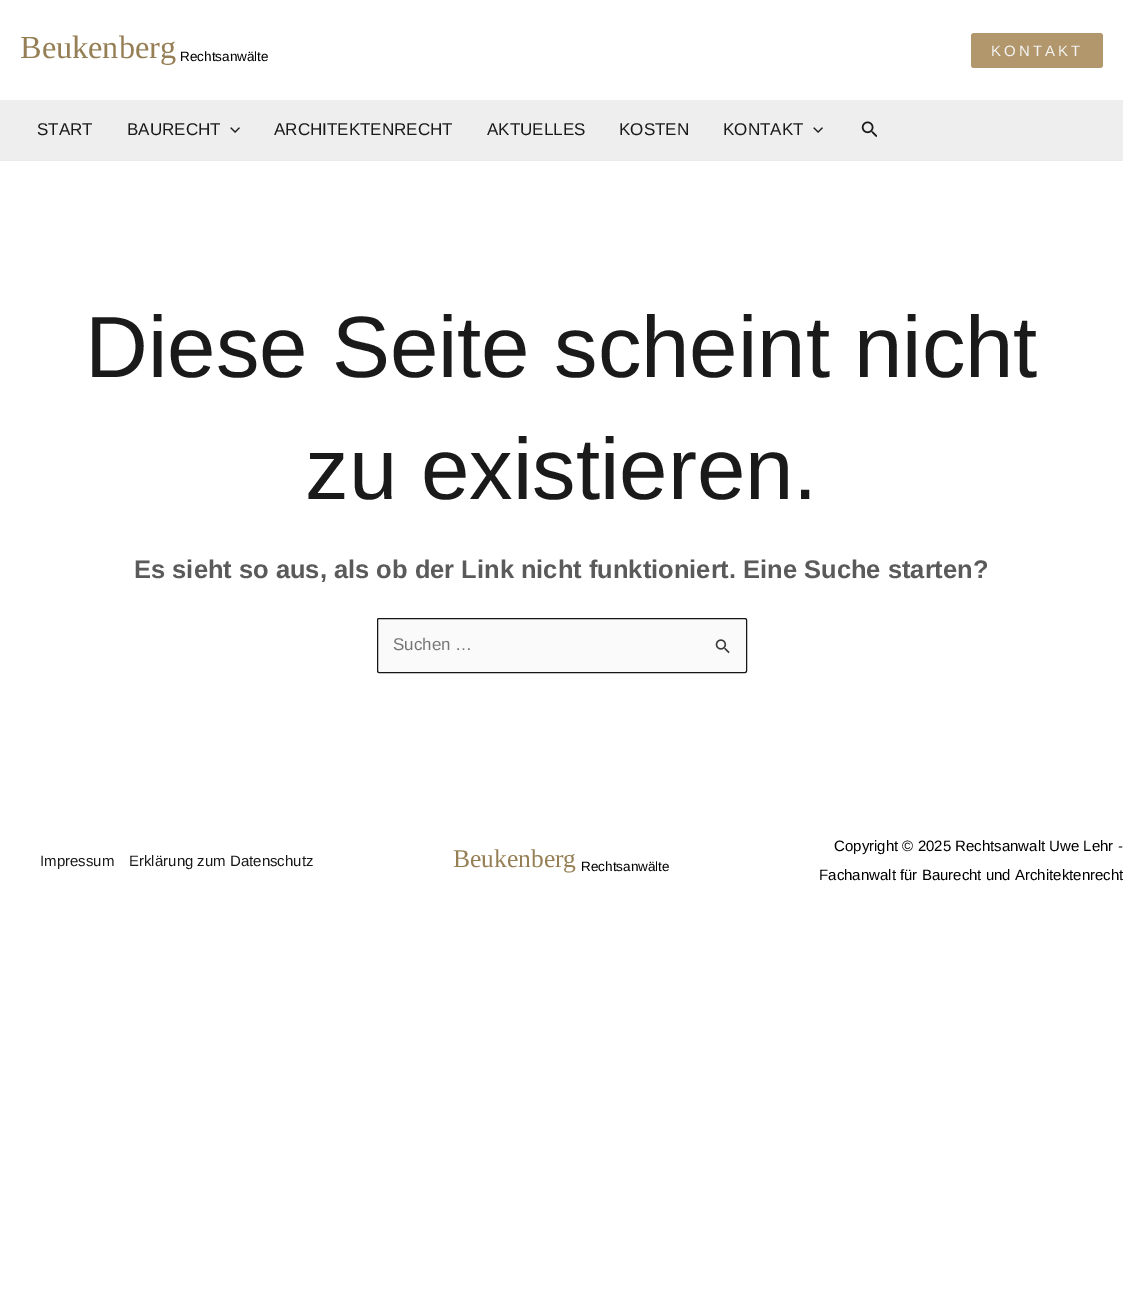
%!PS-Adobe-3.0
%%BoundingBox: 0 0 1123 1291
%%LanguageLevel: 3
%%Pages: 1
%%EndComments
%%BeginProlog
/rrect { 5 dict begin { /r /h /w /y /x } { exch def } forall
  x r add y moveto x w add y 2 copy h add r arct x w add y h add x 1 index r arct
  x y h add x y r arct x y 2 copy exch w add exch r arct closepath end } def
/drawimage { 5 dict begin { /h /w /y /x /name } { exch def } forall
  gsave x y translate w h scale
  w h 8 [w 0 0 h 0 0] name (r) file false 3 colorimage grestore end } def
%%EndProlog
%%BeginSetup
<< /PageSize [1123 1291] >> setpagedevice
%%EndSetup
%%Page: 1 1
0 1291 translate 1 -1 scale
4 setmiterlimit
1 setgray
0 0 1123 1291 rectfill
0.694 0.592 0.42 setrgbcolor
971 33 132 35 3 rrect fill
0.933 setgray
0 100 1123 60 rectfill
0.918 setgray
0 160 1123 1 rectfill
(images/1.raw) 230 127 10 6 drawimage
(images/1.raw) 813 127 10 6 drawimage
(images/2.raw) 861 121 16 17 drawimage
0.98 setgray
377.5 618.5 369 54 1.5 rrect gsave fill grestore
0.086 setgray
stroke
(images/3.raw) 715 639 15 15 drawimage
/LiberationSerif-Regular [32.25 0 0 -32.25 0 0] selectfont
0.592 0.498 0.333 setrgbcolor
20 58 moveto (Beukenberg) show
/LiberationSans-Regular [13.5 0 0 -13.5 0 0] selectfont
0 setgray
180 61 moveto (Rechtsanwälte) show
/LiberationSans-Regular [15 0 0 -15 0 0] selectfont
0.961 setgray
991 56 moveto 3 0 (KONTAKT) ashow
/LiberationSans-Regular [17 0 0 -17 0 0] selectfont
0.102 setgray
37 135 moveto (START) show
127 135 moveto (BAURECHT) show
274 135 moveto (ARCHITEKTENRECHT) show
487 135 moveto (AKTUELLES) show
619 135 moveto (KOSTEN) show
723 135 moveto (KONTAKT) show
/LiberationSans-Regular [87 0 0 -87 0 0] selectfont
85 377 moveto (Diese Seite scheint nicht) show
305 499 moveto (zu existieren.) show
/LiberationSans-Bold [25.5 0 0 -25.5 0 0] selectfont
0.353 setgray
134 578 moveto (Es sieht so aus, als ob der Link nicht funktioniert. Eine Suche starten?) show
/LiberationSans-Regular [17 0 0 -17 0 0] selectfont
0.459 setgray
393 650 moveto (Suchen …) show
/LiberationSans-Regular [15 0 0 -15 0 0] selectfont
0.102 setgray
40 866 moveto (Impressum) show
129 866 moveto (Erklärung zum Datenschutz) show
/LiberationSerif-Regular [25.5 0 0 -25.5 0 0] selectfont
0.592 0.498 0.333 setrgbcolor
453 867 moveto (Beukenberg) show
/LiberationSans-Regular [13.5 0 0 -13.5 0 0] selectfont
0 setgray
581 871 moveto (Rechtsanwälte) show
/LiberationSans-Regular [15 0 0 -15 0 0] selectfont
834 851 moveto (Copyright © 2025 Rechtsanwalt Uwe Lehr -) show
819 880 moveto (Fachanwalt für Baurecht und Architektenrecht) show
showpage
%%EOF
